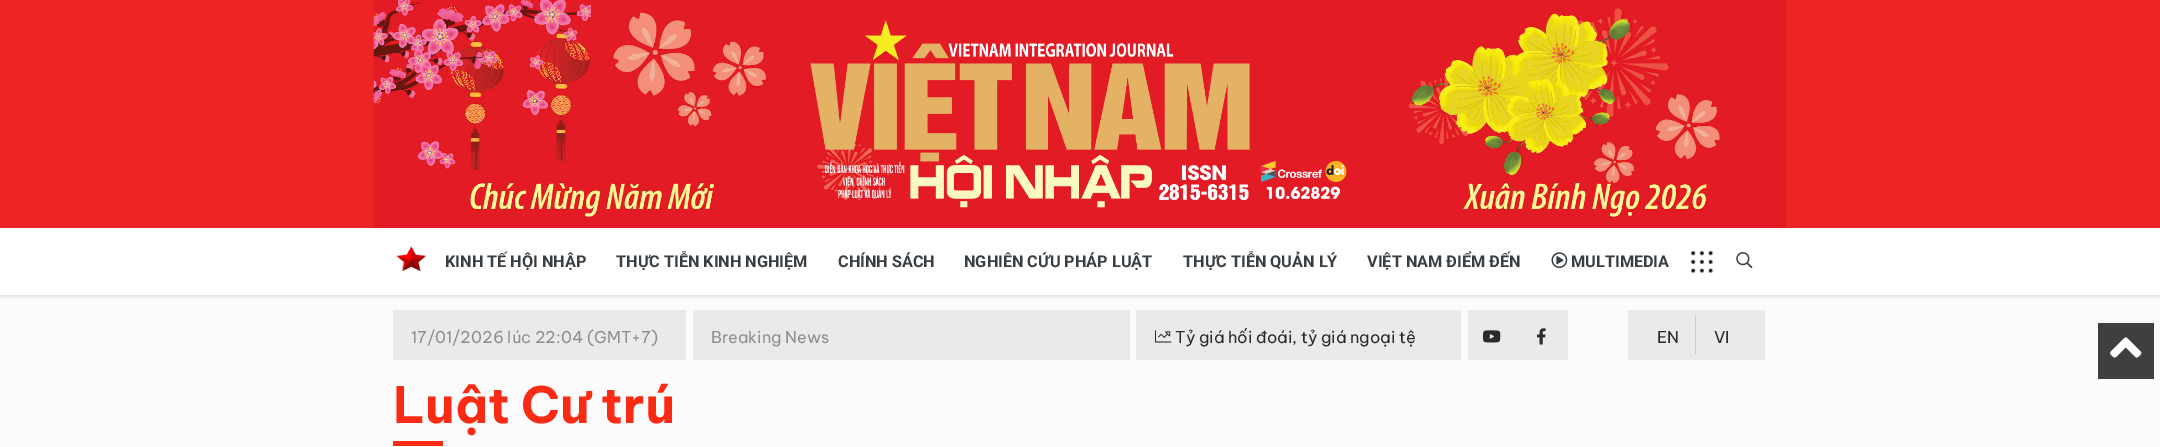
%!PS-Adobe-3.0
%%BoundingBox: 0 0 2160 447
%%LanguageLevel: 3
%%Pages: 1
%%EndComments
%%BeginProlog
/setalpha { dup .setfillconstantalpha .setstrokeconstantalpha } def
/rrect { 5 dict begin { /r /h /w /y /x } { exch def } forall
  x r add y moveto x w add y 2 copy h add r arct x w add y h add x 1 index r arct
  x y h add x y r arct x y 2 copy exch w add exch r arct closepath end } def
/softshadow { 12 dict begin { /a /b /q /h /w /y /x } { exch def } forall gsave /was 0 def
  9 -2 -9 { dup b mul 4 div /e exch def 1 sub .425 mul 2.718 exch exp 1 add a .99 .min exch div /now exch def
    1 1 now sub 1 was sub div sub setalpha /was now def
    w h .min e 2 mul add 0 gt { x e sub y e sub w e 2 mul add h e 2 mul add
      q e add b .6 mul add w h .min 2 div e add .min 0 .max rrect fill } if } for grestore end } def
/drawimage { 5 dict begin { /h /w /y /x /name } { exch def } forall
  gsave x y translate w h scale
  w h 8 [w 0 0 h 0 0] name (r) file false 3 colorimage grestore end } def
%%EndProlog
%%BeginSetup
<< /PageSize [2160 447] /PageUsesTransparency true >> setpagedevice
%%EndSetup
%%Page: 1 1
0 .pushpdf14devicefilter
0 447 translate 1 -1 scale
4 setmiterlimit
0.984 setgray
0 0 2160 447 rectfill
0.929 0.149 0.145 setrgbcolor
0 0 2160 228 rectfill
(images/1.raw) 373 0 1413 228 drawimage
(images/2.raw) 810 20 537 188 drawimage
0 setgray
0 229 2160 67 0 2 0.15 softshadow
1 setgray
0 228 2160 67 rectfill
(images/3.raw) 396 246 30 26 drawimage
(images/4.raw) 1551 252 17 16 drawimage
(images/5.raw) 1691 251 22 22 drawimage
(images/6.raw) 1736 252 17 17 drawimage
0.918 setgray
393 310 293 50 rectfill
693 310 437 50 rectfill
1136 310 325 50 rectfill
(images/7.raw) 1155 330 17 13 drawimage
1468 310 100 50 rectfill
(images/8.raw) 1483 330 18 13 drawimage
(images/9.raw) 1537 328 9 17 drawimage
1628 310 137 50 rectfill
0.8 setgray
1695 316 1 38 rectfill
0.247 setgray
2098 323 56 56 rectfill
(images/10.raw) 2110 337 32 21 drawimage
0.976 0.169 0.082 setrgbcolor
393 441 50 5 rectfill
/Roboto-Bold [16.25 0 0 -16.25 0 0] selectfont
0.22 0.243 0.259 setrgbcolor
445 267 moveto (KINH TẾ HỘI NHẬP) show
616 267 moveto (THỰC TIỄN KINH NGHIỆM) show
838 267 moveto (CHÍNH SÁCH) show
964 267 moveto (NGHIÊN CỨU PHÁP LUẬT) show
1183 267 moveto (THỰC TIỄN QUẢN LÝ) show
1367 267 moveto (VIỆT NAM ĐIỂM ĐẾN) show
1571 267 moveto (MULTIMEDIA) show
/BeVietnamPro-Regular [16.25 0 0 -16.25 0 0] selectfont
0.557 setgray
411 343 moveto (17/01/2026 lúc 22:04 \(GMT+7\)) show
711 343 moveto (Breaking News) show
0.165 setgray
1175 343 moveto (Tỷ giá hối đoái, tỷ giá ngoại tệ) show
1657 343 moveto (EN) show
1714 343 moveto (VI) show
/BeVietnamPro-Bold [50 0 0 -50 0 0] selectfont
0.976 0.169 0.082 setrgbcolor
393 423 moveto (Luật Cư trú) show
.poppdf14devicefilter showpage
%%EOF
